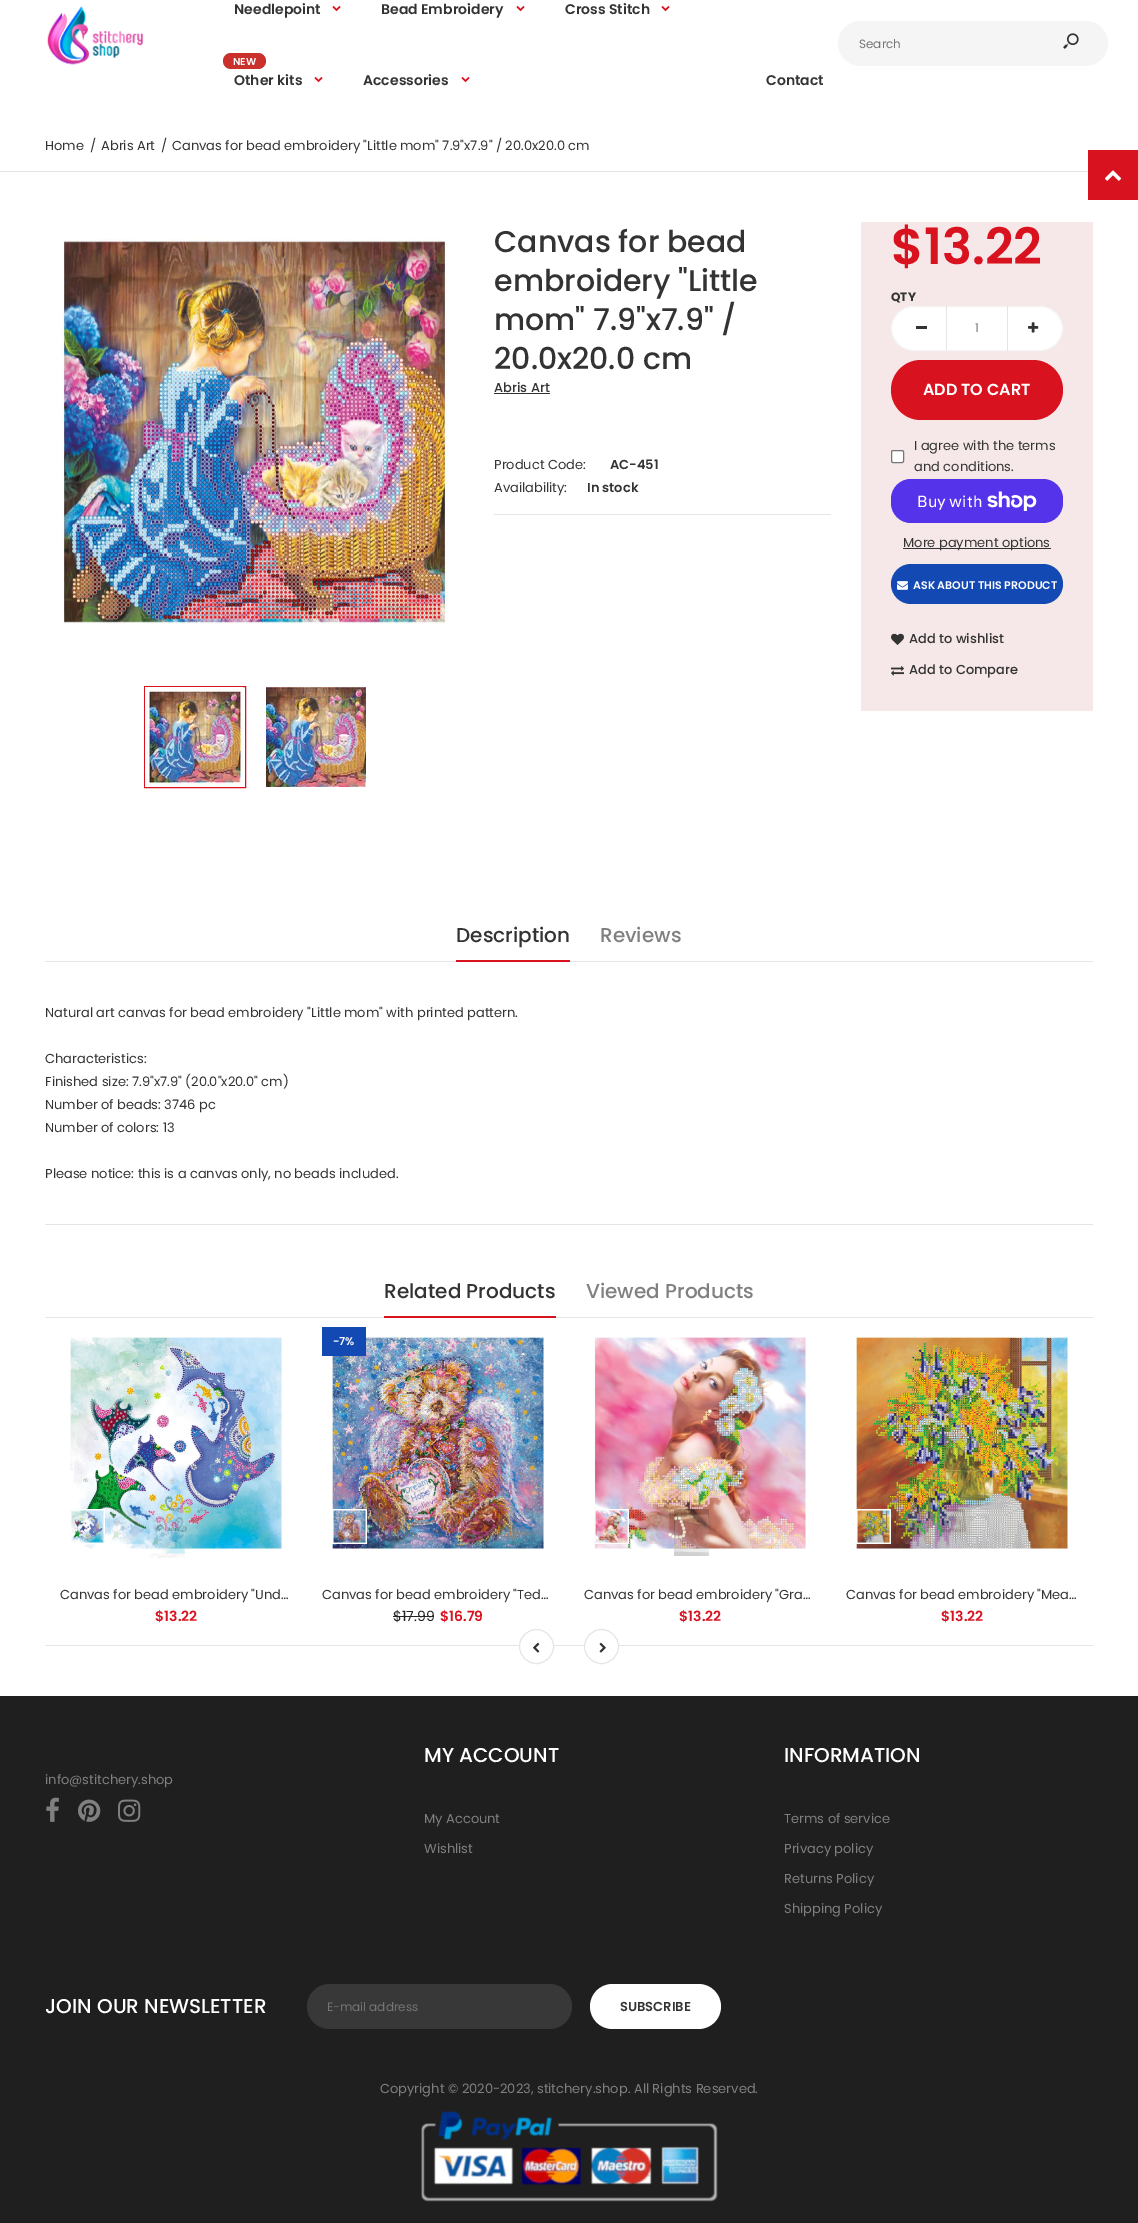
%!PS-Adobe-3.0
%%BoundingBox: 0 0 1138 2223
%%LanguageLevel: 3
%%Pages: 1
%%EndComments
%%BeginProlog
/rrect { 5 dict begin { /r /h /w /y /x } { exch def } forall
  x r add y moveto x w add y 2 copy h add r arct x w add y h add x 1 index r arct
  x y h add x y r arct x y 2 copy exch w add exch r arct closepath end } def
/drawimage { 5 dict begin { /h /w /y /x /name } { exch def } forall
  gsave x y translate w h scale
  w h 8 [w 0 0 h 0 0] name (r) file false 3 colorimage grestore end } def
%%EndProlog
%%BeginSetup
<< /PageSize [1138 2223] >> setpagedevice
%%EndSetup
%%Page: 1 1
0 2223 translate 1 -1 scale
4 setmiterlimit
1 setgray
0 0 1138 2223 rectfill
(images/1.raw) 47 6 97 59 drawimage
(images/2.raw) 332 6 9 6 drawimage
(images/2.raw) 516 6 9 6 drawimage
(images/2.raw) 661 6 9 6 drawimage
0.792 0.188 0.173 setrgbcolor
223 53 43 16 8 rrect fill
(images/2.raw) 314 77 9 6 drawimage
(images/2.raw) 461 77 9 6 drawimage
0.961 setgray
838 21 270 45 22.5 rrect fill
(images/3.raw) 1063 33 16 16 drawimage
0.898 setgray
0 171 1088 1 rectfill
(images/4.raw) 62 238 386 387 drawimage
0.851 0.071 0.122 setrgbcolor
144.5 686.5 101 101 rectstroke
(images/5.raw) 145 687 98 100 drawimage
(images/6.raw) 266 687 100 100 drawimage
0.2 setgray
494 393 56 1 rectfill
0.898 setgray
494 514 337 1 rectfill
0.965 0.91 0.91 setrgbcolor
861 222 232 489 rectfill
1 setgray
891.5 306.5 171 44 22 rrect gsave fill grestore
0.961 setgray
stroke
0.898 setgray
946 306 1 45 rectfill
0.2 setgray
916 326 11 3 rectfill
0.898 setgray
1007 306 1 45 rectfill
(images/7.raw) 1028 322 11 11 drawimage
0.851 0.071 0.122 setrgbcolor
891 360 172 60 30 rrect fill
1 setgray
891.5 450.5 12 12 1.5 rrect gsave fill grestore
0.463 setgray
stroke
0.329 0.2 0.922 setrgbcolor
891 479 172 44 20 rrect fill
(images/8.raw) 987 491 50 20 drawimage
0.2 setgray
903 548 148 1 rectfill
0.075 0.286 0.698 setrgbcolor
891 564 172 40 20 rrect fill
(images/9.raw) 897 581 11 9 drawimage
(images/10.raw) 891 633 13 12 drawimage
(images/11.raw) 891 666 13 10 drawimage
0.898 setgray
45 961 1048 1 rectfill
0.851 0.071 0.122 setrgbcolor
456 960 114 2 rectfill
0.898 setgray
45 1224 1048 1 rectfill
45 1317 1048 1 rectfill
0.851 0.071 0.122 setrgbcolor
384 1316 172 2 rectfill
(images/12.raw) 70 1337 212 213 drawimage
(images/13.raw) 70 1509 35 35 drawimage
(images/14.raw) 110 1509 35 35 drawimage
(images/15.raw) 150 1509 35 49 drawimage
(images/16.raw) 332 1336 212 213 drawimage
0.075 0.286 0.698 setrgbcolor
322 1327 44 29 rectfill
(images/17.raw) 332 1509 35 35 drawimage
(images/18.raw) 372 1509 35 35 drawimage
0.137 setgray
393 1616 41 1 rectfill
(images/19.raw) 594 1337 212 212 drawimage
(images/20.raw) 595 1509 34 35 drawimage
(images/21.raw) 634 1509 35 35 drawimage
(images/22.raw) 674 1509 35 47 drawimage
(images/23.raw) 856 1336 212 213 drawimage
(images/24.raw) 856 1509 35 35 drawimage
(images/25.raw) 896 1509 35 35 drawimage
(images/26.raw) 936 1509 35 26 drawimage
0.898 setgray
45 1645 1048 1 rectfill
1 setgray
newpath 536.5 1646.5 17 0 360 arc closepath gsave fill grestore
0.898 setgray
stroke
(images/27.raw) 533 1642 7 11 drawimage
1 setgray
newpath 601.5 1646.5 17 0 360 arc closepath gsave fill grestore
0.898 setgray
stroke
(images/28.raw) 599 1642 7 11 drawimage
0.122 setgray
0 1696 1138 527 rectfill
(images/29.raw) 46 1797 13 25 drawimage
(images/30.raw) 78 1799 23 23 drawimage
(images/31.raw) 118 1799 23 23 drawimage
0.22 setgray
307 1984 265 45 22.5 rrect fill
1 setgray
590 1984 131 45 22.5 rrect fill
(images/32.raw) 421 2111 297 91 drawimage
0.851 0.071 0.122 setrgbcolor
1088 150 50 50 rectfill
(images/33.raw) 1104 170 18 11 drawimage
/Poppins-SemiBold [14 0 0 -14 0 0] selectfont
0.2 setgray
234 14 moveto (Needlepoint) show
381 14 moveto (Bead Embroidery) show
565 14 moveto (Cross Stitch) show
/Poppins-SemiBold [10 0 0 -10 0 0] selectfont
1 setgray
233 65 moveto (NEW) show
/Poppins-SemiBold [14 0 0 -14 0 0] selectfont
0.2 setgray
234 85 moveto (Other kits) show
363 85 moveto (Accessories) show
766 85 moveto (Contact) show
/Poppins-Regular [12 0 0 -12 0 0] selectfont
0.459 setgray
859 48 moveto (Search) show
/Poppins-Regular [13 0 0 -13 0 0] selectfont
0.2 setgray
45 150 moveto (Home) show
90 150 moveto (/) show
101 150 moveto (Abris Art) show
161 150 moveto (/) show
172 150 moveto (Canvas for bead embroidery "Little mom" 7.9"x7.9" / 20.0x20.0 cm) show
/Poppins-Medium [30 0 0 -30 0 0] selectfont
494 252 moveto (Canvas for bead) show
494 291 moveto (embroidery "Little) show
494 330 moveto (mom" 7.9"x7.9" /) show
494 369 moveto (20.0x20.0 cm) show
/Poppins-Medium [13 0 0 -13 0 0] selectfont
494 392 moveto (Abris Art) show
/Poppins-Regular [13 0 0 -13 0 0] selectfont
494 469 moveto (Product Code:) show
/Poppins-SemiBold [13 0 0 -13 0 0] selectfont
610 469 moveto (AC-451) show
/Poppins-Regular [13 0 0 -13 0 0] selectfont
494 492 moveto (Availability:) show
/Poppins-SemiBold [13 0 0 -13 0 0] selectfont
587 492 moveto (In stock) show
/Poppins-SemiBold [50 0 0 -50 0 0] selectfont
0.851 0.071 0.122 setrgbcolor
891 264 moveto ($13.22) show
/Poppins-Bold [12 0 0 -12 0 0] selectfont
0.2 setgray
891 301 moveto (QTY) show
/Poppins-Regular [12 0 0 -12 0 0] selectfont
0.502 setgray
975 332 moveto (1) show
/Poppins-SemiBold [16 0 0 -16 0 0] selectfont
1 setgray
923 395 moveto (ADD TO CART) show
/Poppins-Regular [13 0 0 -13 0 0] selectfont
0.2 setgray
914 450 moveto (I agree with the terms) show
914 471 moveto (and conditions.) show
/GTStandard-Regular [16 0 0 -16 0 0] selectfont
1 setgray
917 507 moveto (Buy with) show
/Poppins-Regular [13 0 0 -13 0 0] selectfont
0.2 setgray
903 547 moveto (More payment options) show
/Poppins-SemiBold [11 0 0 -11 0 0] selectfont
1 setgray
913 589 moveto (ASK ABOUT THIS PRODUCT) show
/Poppins-Medium [13 0 0 -13 0 0] selectfont
0.2 setgray
909 643 moveto (Add to wishlist) show
909 674 moveto (Add to Compare) show
/Poppins-Medium [20 0 0 -20 0 0] selectfont
456 942 moveto (Description) show
0.502 setgray
600 942 moveto (Reviews) show
/Poppins-Regular [13 0 0 -13 0 0] selectfont
0.2 setgray
45 1017 moveto (Natural art canvas for bead embroidery "Little mom" with printed pattern.) show
45 1063 moveto (Characteristics:) show
45 1086 moveto (Finished size: 7.9"x7.9" \(20.0"x20.0" cm\)) show
45 1109 moveto (Number of beads: 3746 pc) show
45 1132 moveto (Number of colors: 13) show
45 1178 moveto (Please notice: this is a canvas only, no beads included.) show
/Poppins-Medium [20 0 0 -20 0 0] selectfont
384 1298 moveto (Related Products) show
0.502 setgray
586 1298 moveto (Viewed Products) show
/Poppins-Regular [13 0 0 -13 0 0] selectfont
0.2 setgray
60 1599 moveto (Canvas for bead embroidery "Und…) show
/Poppins-SemiBold [14 0 0 -14 0 0] selectfont
0.851 0.071 0.122 setrgbcolor
155 1621 moveto ($13.22) show
/Poppins-SemiBold [11 0 0 -11 0 0] selectfont
1 setgray
333 1345 moveto (-7%) show
/Poppins-Regular [13 0 0 -13 0 0] selectfont
0.2 setgray
322 1599 moveto (Canvas for bead embroidery "Ted…) show
/Poppins-Regular [14 0 0 -14 0 0] selectfont
0.137 setgray
393 1621 moveto ($17.99) show
/Poppins-SemiBold [14 0 0 -14 0 0] selectfont
0.851 0.071 0.122 setrgbcolor
440 1621 moveto ($16.79) show
/Poppins-Regular [13 0 0 -13 0 0] selectfont
0.2 setgray
584 1599 moveto (Canvas for bead embroidery "Gra…) show
/Poppins-SemiBold [14 0 0 -14 0 0] selectfont
0.851 0.071 0.122 setrgbcolor
679 1621 moveto ($13.22) show
/Poppins-Regular [13 0 0 -13 0 0] selectfont
0.2 setgray
846 1599 moveto (Canvas for bead embroidery "Mea…) show
/Poppins-SemiBold [14 0 0 -14 0 0] selectfont
0.851 0.071 0.122 setrgbcolor
941 1621 moveto ($13.22) show
/Poppins-Regular [13 0 0 -13 0 0] selectfont
0.502 setgray
45 1784 moveto (info@stitchery.shop) show
/Poppins-Medium [20 0 0 -20 0 0] selectfont
1 setgray
424 1762 moveto (MY ACCOUNT) show
/Poppins-Regular [13 0 0 -13 0 0] selectfont
0.502 setgray
424 1823 moveto (My Account) show
424 1853 moveto (Wishlist) show
/Poppins-Medium [20 0 0 -20 0 0] selectfont
1 setgray
784 1762 moveto (INFORMATION) show
/Poppins-Regular [13 0 0 -13 0 0] selectfont
0.502 setgray
784 1823 moveto (Terms of service) show
784 1853 moveto (Privacy policy) show
784 1883 moveto (Returns Policy) show
784 1913 moveto (Shipping Policy) show
/Poppins-Medium [20 0 0 -20 0 0] selectfont
1 setgray
45 2013 moveto (JOIN OUR NEWSLETTER) show
/Poppins-Regular [12 0 0 -12 0 0] selectfont
0.459 setgray
327 2011 moveto (E-mail address) show
/Poppins-SemiBold [13 0 0 -13 0 0] selectfont
0.2 setgray
620 2011 moveto (SUBSCRIBE) show
/Poppins-Regular [13 0 0 -13 0 0] selectfont
0.502 setgray
380 2093 moveto (Copyright © 2020-2023, stitchery.shop. All Rights Reserved.) show
showpage
%%EOF
